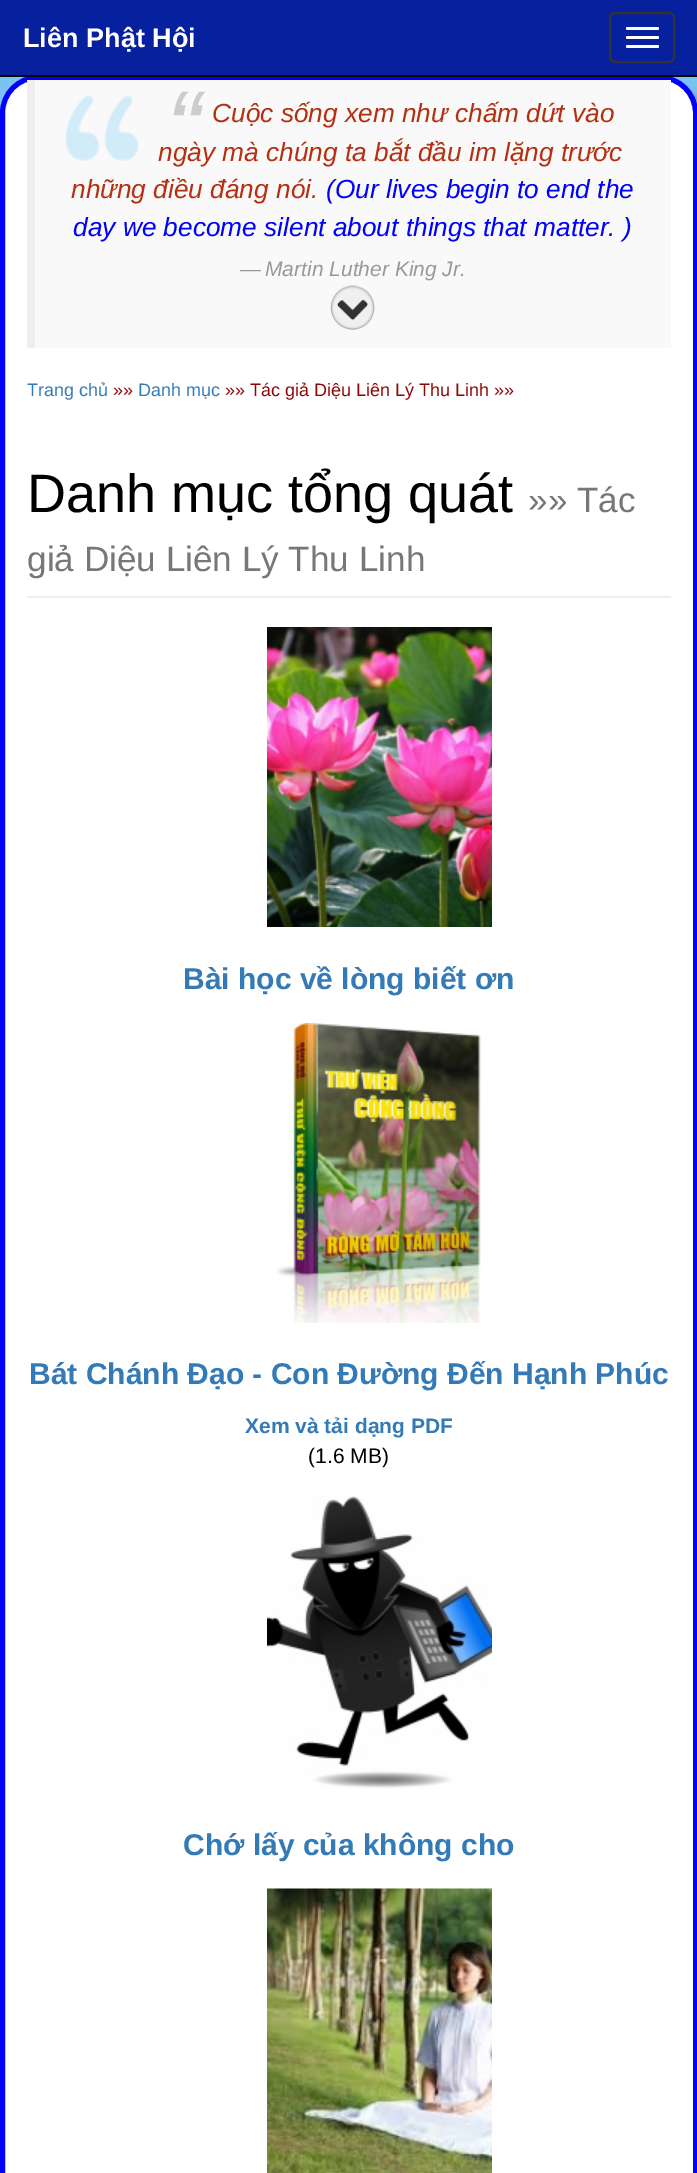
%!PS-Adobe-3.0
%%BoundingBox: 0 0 697 2173
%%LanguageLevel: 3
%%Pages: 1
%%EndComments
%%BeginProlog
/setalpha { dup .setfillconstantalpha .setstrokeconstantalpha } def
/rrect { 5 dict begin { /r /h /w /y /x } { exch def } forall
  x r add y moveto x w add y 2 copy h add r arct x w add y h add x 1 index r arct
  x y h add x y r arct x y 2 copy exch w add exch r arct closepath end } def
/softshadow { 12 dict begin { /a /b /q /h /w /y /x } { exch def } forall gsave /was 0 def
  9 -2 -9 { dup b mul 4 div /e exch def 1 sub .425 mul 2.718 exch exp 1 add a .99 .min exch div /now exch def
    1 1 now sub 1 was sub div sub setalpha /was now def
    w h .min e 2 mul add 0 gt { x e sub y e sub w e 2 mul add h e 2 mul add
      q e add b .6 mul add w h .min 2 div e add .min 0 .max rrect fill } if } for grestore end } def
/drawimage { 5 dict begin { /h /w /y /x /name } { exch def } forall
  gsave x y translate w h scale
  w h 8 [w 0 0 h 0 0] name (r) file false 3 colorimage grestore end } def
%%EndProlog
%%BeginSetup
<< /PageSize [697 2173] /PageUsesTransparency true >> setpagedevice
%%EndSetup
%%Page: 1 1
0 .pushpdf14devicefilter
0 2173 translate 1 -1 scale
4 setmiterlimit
1 setgray
0 0 697 2173 rectfill
gsave newpath 0 77 moveto 697 77 lineto 697 113 lineto 0 113 lineto closepath clip newpath
<< /ShadingType 2 /ColorSpace /DeviceRGB /Coords [349 0 349 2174] /Extend [true true] /Function << /FunctionType 3 /Domain [0 1] /Functions [<< /FunctionType 2 /Domain [0 1] /C0 [0.482 0.757 0.953] /C1 [0.439 0.847 0.98] /N 1 >> << /FunctionType 2 /Domain [0 1] /C0 [0.439 0.847 0.98] /C1 [0.482 0.757 0.953] /N 1 >>] /Bounds [0.5] /Encode [0 1 0 1] >> >> shfill grestore
0.027 0.129 0.62 setrgbcolor
0 0 697 75 rectfill
0.533 setgray
15 90 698 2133 38 4 1 softshadow
1 setgray
2.5 77.5 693 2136 35.5 rrect gsave fill grestore
0 0 1 setrgbcolor
5 setlinewidth
stroke
0.031 setgray
0 75 697 2 rectfill
0.2 setgray
2 setlinewidth
610 13 64 49 5 rrect stroke
1 setgray
626 27 33 3 1.5 rrect fill
626 36 33 3 1.5 rrect fill
626 45 33 3 1.5 rrect fill
0.976 setgray
35 80 636 268 rectfill
0.933 setgray
27 80 8 268 rectfill
(images/1.raw) 65 95 74 66 drawimage
(images/2.raw) 330 285 45 45 drawimage
27 596 644 2 rectfill
(images/3.raw) 267 627 225 300 drawimage
(images/4.raw) 276 1023 205 300 drawimage
(images/5.raw) 267 1496 225 293 drawimage
(images/6.raw) 267 1888 225 285 drawimage
/LiberationSans-Bold [27 0 0 -27 0 0] selectfont
1 setgray
23 47 moveto (Liên Phật Hội) show
/LiberationSans-Italic [105 0 0 -105 0 0] selectfont
0.8 setgray
166 164 moveto (“) show
/LiberationSans-Italic [26.25 0 0 -26.25 0 0] selectfont
0.706 0.188 0.063 setrgbcolor
212 122 moveto (Cuộc sống xem như chấm dứt vào) show
158 161 moveto (ngày mà chúng ta bắt đầu im lặng trước) show
71 198 moveto (những điều đáng nói.) show
0 0 1 setrgbcolor
326 198 moveto (\(Our lives begin to end the) show
73 236 moveto (day we become silent about things that matter. \)) show
/LiberationSans-Italic [21 0 0 -21 0 0] selectfont
0.6 setgray
240 276 moveto (—) show
265 276 moveto (Martin Luther King Jr.) show
/LiberationSans-Regular [18 0 0 -18 0 0] selectfont
0.2 0.478 0.718 setrgbcolor
27 396 moveto (Trang chủ) show
0.557 0.024 0.031 setrgbcolor
113 396 moveto (»») show
0.2 0.478 0.718 setrgbcolor
138 396 moveto (Danh mục) show
0.557 0.024 0.031 setrgbcolor
225 396 moveto (»» Tác giả Diệu Liên Lý Thu Linh »») show
/LiberationSans-Regular [54 0 0 -54 0 0] selectfont
0 setgray
27 512 moveto (Danh mục tổng quát) show
/LiberationSans-Regular [35.1 0 0 -35.1 0 0] selectfont
0.467 setgray
528 512 moveto (»» Tác) show
27 571 moveto (giả Diệu Liên Lý Thu Linh) show
/LiberationSans-Bold [30 0 0 -30 0 0] selectfont
0.2 0.478 0.718 setrgbcolor
183 989 moveto (Bài học về lòng biết ơn) show
29 1384 moveto (Bát Chánh Đạo - Con Đường Đến Hạnh Phúc) show
/LiberationSans-Bold [21 0 0 -21 0 0] selectfont
245 1433 moveto (Xem và tải dạng PDF) show
/LiberationSans-Regular [21 0 0 -21 0 0] selectfont
0 setgray
308 1463 moveto (\(1.6 MB\)) show
/LiberationSans-Bold [30 0 0 -30 0 0] selectfont
0.2 0.478 0.718 setrgbcolor
183 1855 moveto (Chớ lấy của không cho) show
.poppdf14devicefilter showpage
%%EOF
